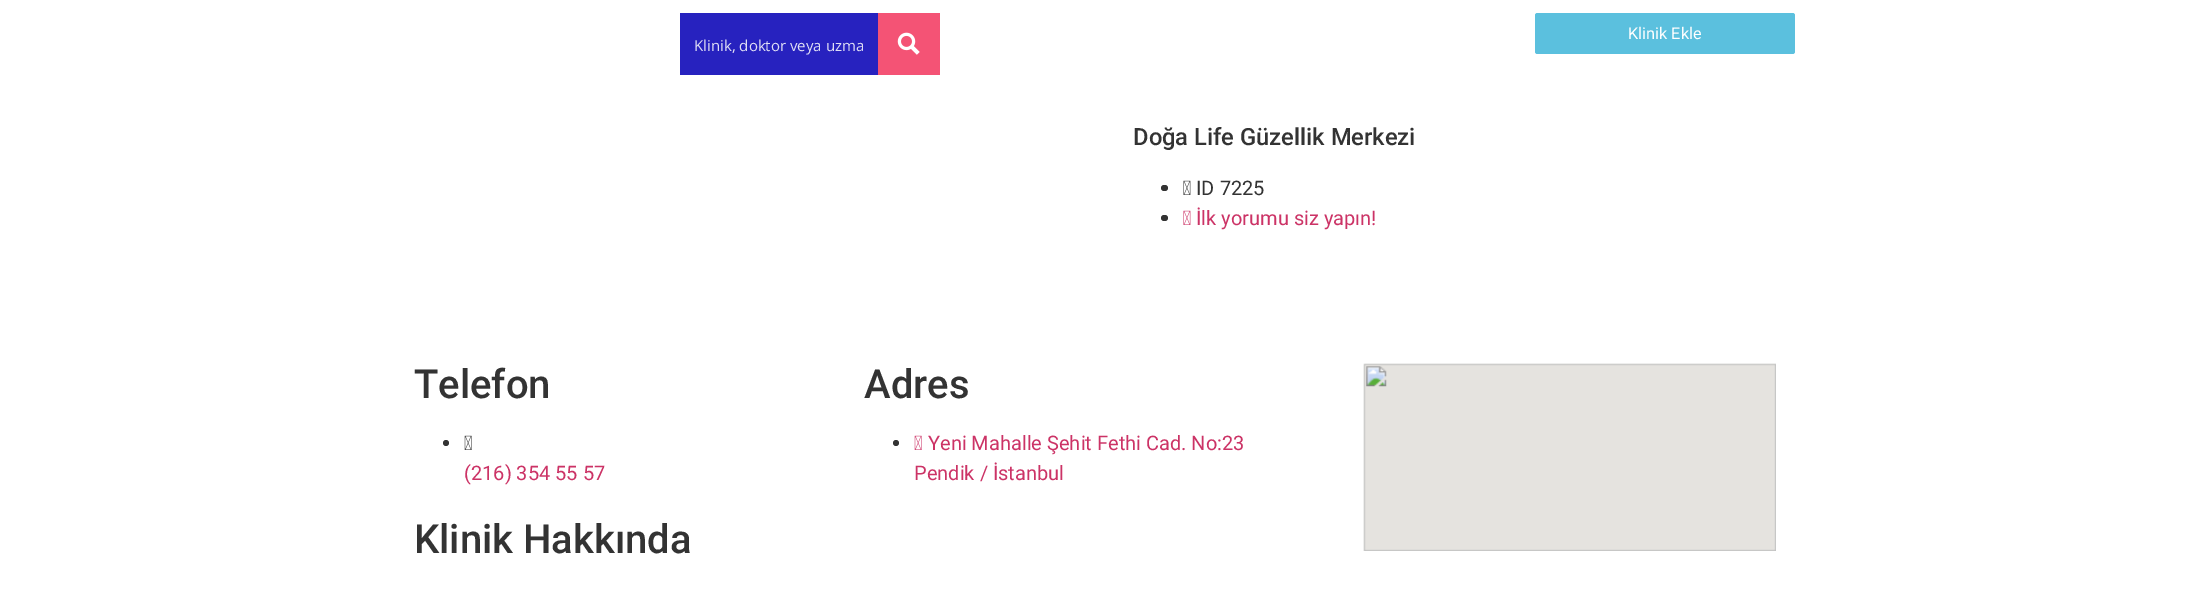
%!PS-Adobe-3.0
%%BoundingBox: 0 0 2190 593
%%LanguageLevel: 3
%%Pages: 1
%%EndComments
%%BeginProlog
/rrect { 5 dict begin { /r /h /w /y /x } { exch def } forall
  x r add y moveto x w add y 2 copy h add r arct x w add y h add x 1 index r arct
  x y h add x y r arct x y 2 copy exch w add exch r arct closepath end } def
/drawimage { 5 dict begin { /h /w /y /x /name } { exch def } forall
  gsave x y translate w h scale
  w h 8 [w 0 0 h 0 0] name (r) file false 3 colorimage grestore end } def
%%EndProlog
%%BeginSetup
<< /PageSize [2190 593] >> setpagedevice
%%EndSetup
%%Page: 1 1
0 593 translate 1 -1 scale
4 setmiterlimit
1 setgray
0 0 2190 593 rectfill
0.357 0.753 0.871 setrgbcolor
1535 13 260 41 2.5 rrect fill
0.153 0.133 0.749 setrgbcolor
680 13 198 62 rectfill
0.957 0.325 0.459 setrgbcolor
878 13 62 62 rectfill
(images/1.raw) 897 32 23 23 drawimage
0.2 setgray
1161 185 7 6 3 rrect fill
(images/2.raw) 1183 180 8 15 drawimage
1161 215 7 6 3 rrect fill
(images/3.raw) 1183 210 8 15 drawimage
newpath 446 443 3 0 360 arc closepath fill
(images/4.raw) 464 435 8 15 drawimage
newpath 896 443 3 0 360 arc closepath fill
(images/5.raw) 914 435 8 15 drawimage
(images/6.raw) 1363 363 413 188 drawimage
/Roboto-Regular [16.25 0 0 -16.25 0 0] selectfont
1 setgray
1628 39 moveto (Klinik Ekle) show
/OpenSans-Regular [15 0 0 -15 0 0] selectfont
0.875 0.871 0.961 setrgbcolor
694 51 moveto (Klinik, doktor veya uzma) show
/Roboto-Medium [23.75 0 0 -23.75 0 0] selectfont
0.2 setgray
1133 145 moveto (Doğa Life Güzellik Merkezi) show
/Roboto-Regular [20 0 0 -20 0 0] selectfont
1196 195 moveto (ID 7225) show
0.8 0.2 0.4 setrgbcolor
1196 225 moveto (İlk yorumu siz yapın!) show
/Roboto-Medium [40 0 0 -40 0 0] selectfont
0.2 setgray
414 398 moveto (Telefon) show
/Roboto-Regular [20 0 0 -20 0 0] selectfont
0.8 0.2 0.4 setrgbcolor
464 480 moveto (\(216\) 354 55 57) show
/Roboto-Medium [40 0 0 -40 0 0] selectfont
0.2 setgray
864 398 moveto (Adres) show
/Roboto-Regular [20 0 0 -20 0 0] selectfont
0.8 0.2 0.4 setrgbcolor
928 450 moveto (Yeni Mahalle Şehit Fethi Cad. No:23) show
914 480 moveto (Pendik / İstanbul) show
/Roboto-Medium [40 0 0 -40 0 0] selectfont
0.2 setgray
414 553 moveto (Klinik Hakkında) show
showpage
%%EOF
